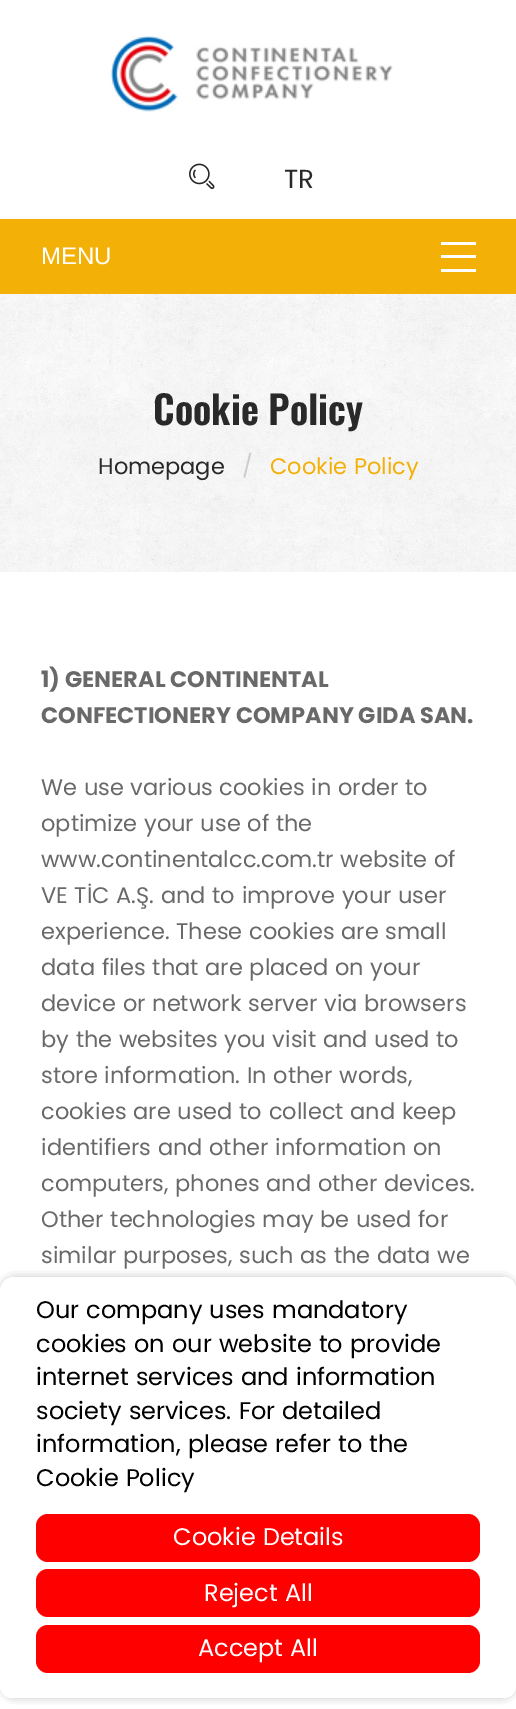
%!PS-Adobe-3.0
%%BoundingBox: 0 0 516 1709
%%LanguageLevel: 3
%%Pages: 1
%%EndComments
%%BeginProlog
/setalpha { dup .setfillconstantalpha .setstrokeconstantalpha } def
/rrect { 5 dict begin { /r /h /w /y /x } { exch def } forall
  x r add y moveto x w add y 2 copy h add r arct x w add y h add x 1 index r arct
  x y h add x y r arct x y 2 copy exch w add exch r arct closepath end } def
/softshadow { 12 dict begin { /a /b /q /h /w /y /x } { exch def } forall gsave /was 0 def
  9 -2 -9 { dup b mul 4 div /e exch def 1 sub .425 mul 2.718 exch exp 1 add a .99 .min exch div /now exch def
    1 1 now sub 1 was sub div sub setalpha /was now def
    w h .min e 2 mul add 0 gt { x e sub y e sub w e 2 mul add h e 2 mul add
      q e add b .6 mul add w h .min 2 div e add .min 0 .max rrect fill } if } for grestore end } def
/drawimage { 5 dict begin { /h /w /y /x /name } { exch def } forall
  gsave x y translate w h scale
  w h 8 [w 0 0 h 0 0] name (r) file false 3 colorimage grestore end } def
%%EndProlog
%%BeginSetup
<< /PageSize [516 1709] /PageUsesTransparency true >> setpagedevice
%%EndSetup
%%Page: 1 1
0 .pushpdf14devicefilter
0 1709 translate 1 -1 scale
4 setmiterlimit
1 setgray
0 0 516 1709 rectfill
(images/1.raw) 110 35 283 77 drawimage
(images/2.raw) 189 163 26 27 drawimage
0.953 0.69 0.027 setrgbcolor
0 219 516 75 rectfill
1 setgray
441 242 35 3 rectfill
441 255 35 3 rectfill
441 269 35 3 rectfill
(images/3.raw) 0 294 516 278 drawimage
0 setgray
8 1284 501 407 6 6 1 softshadow
1 setgray
newpath 14 1277 moveto 504 1277 lineto 510.5 1277 516 1282.5 516 1289 curveto 516 1686 lineto 516 1692.5 510.5 1698 504 1698 curveto 12 1698 lineto 5.5 1698 0 1692.5 0 1686 curveto 0 1291 lineto 0 1283.5 6.5 1277 14 1277 curveto closepath fill
1 0 0 setrgbcolor
36 1514 444 48 12 rrect fill
36 1569 444 48 12 rrect fill
36 1625 444 48 12 rrect fill
/Poppins-Regular [26 0 0 -26 0 0] selectfont
0.161 setgray
284 188 moveto (TR) show
/LiberationSans-Regular [24 0 0 -24 0 0] selectfont
1 setgray
41 264 moveto (MENU) show
/Oswald-SemiBold [39 0 0 -39 0 0] selectfont
0.161 setgray
153 425 moveto (Cookie Policy) show
/Poppins-Regular [22.5 0 0 -22.5 0 0] selectfont
98 474 moveto (Homepage) show
0.8 setgray
242 474 moveto (/) show
0.953 0.69 0.027 setrgbcolor
270 474 moveto (Cookie Policy) show
/Poppins-Bold [22.5 0 0 -22.5 0 0] selectfont
0.412 setgray
41 687 moveto (1\) GENERAL CONTINENTAL) show
41 723 moveto (CONFECTIONERY COMPANY GIDA SAN.) show
/Poppins-Regular [22.5 0 0 -22.5 0 0] selectfont
41 795 moveto (We use various cookies in order to) show
41 831 moveto (optimize your use of the) show
41 867 moveto (www.continentalcc.com.tr website of) show
41 903 moveto (VE TİC A.Ş. and to improve your user) show
41 939 moveto (experience. These cookies are small) show
41 975 moveto (data files that are placed on your) show
41 1011 moveto (device or network server via browsers) show
41 1047 moveto (by the websites you visit and used to) show
41 1083 moveto (store information. In other words,) show
41 1119 moveto (cookies are used to collect and keep) show
41 1155 moveto (identifiers and other information on) show
41 1191 moveto (computers, phones and other devices.) show
41 1227 moveto (Other technologies may be used for) show
41 1263 moveto (similar purposes, such as the data we) show
/Poppins-Regular [24 0 0 -24 0 0] selectfont
0 setgray
36 1318 moveto (Our company uses mandatory) show
36 1352 moveto (cookies on our website to provide) show
36 1385 moveto (internet services and information) show
36 1419 moveto (society services. For detailed) show
36 1452 moveto (information, please refer to the) show
36 1486 moveto (Cookie Policy) show
1 setgray
173 1545 moveto (Cookie Details) show
204 1601 moveto (Reject All) show
198 1656 moveto (Accept All) show
.poppdf14devicefilter showpage
%%EOF
